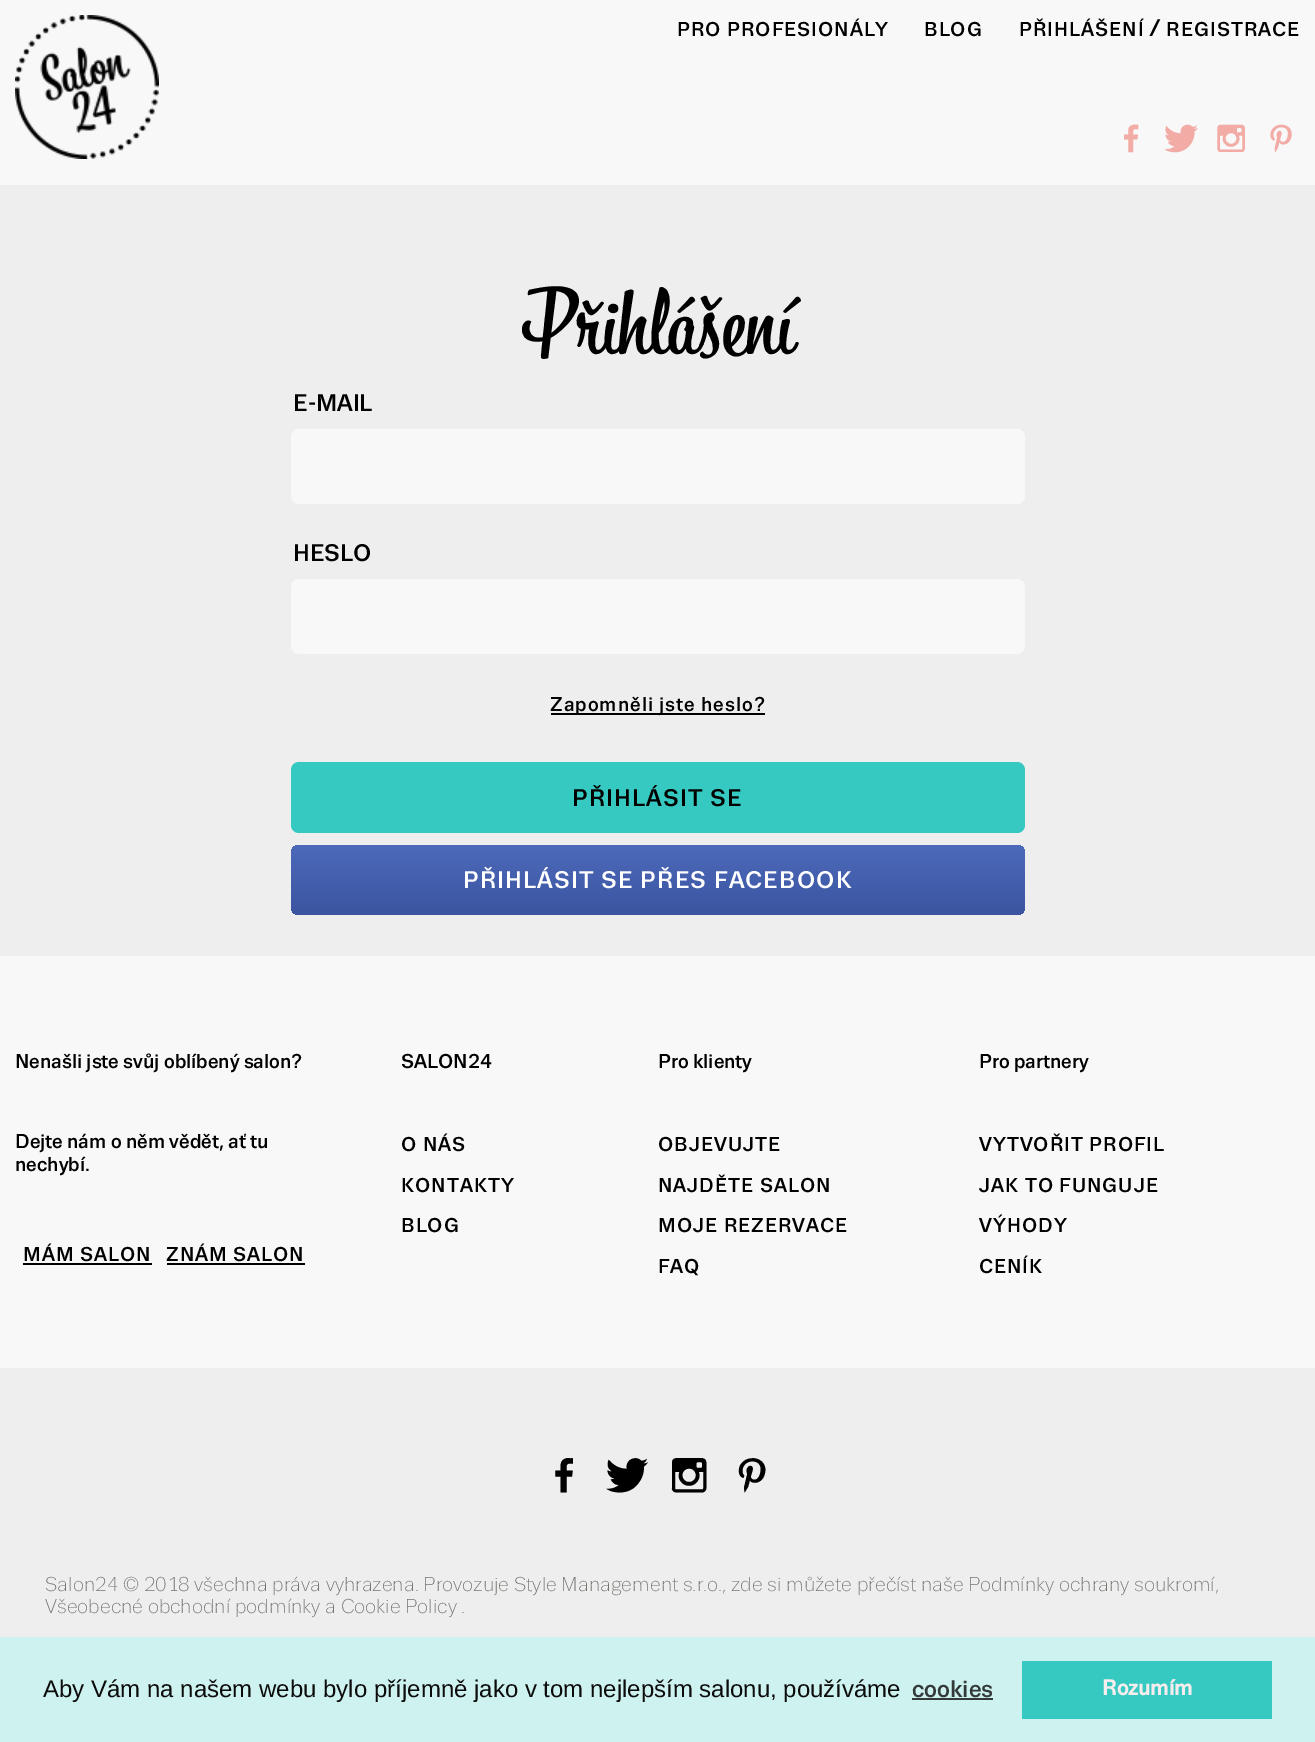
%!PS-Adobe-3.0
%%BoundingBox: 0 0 1315 1742
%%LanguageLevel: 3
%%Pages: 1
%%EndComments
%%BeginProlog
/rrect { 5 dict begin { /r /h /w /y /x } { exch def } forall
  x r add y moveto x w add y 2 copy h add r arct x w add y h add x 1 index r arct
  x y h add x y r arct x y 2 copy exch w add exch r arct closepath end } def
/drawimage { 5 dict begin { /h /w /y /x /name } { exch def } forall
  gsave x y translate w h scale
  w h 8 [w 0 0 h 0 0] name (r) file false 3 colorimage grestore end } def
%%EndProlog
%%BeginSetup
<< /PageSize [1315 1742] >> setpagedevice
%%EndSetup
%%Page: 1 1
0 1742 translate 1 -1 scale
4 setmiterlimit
0.973 setgray
0 0 1315 1742 rectfill
(images/1.raw) 15 15 144 144 drawimage
0.933 setgray
0 185 1315 771 rectfill
0.973 setgray
291 429 734 75 8 rrect fill
291 579 734 75 8 rrect fill
0 setgray
551 713 214 2 rectfill
0.212 0.788 0.757 setrgbcolor
291 762 734 71 8 rrect fill
gsave 291 845 734 70 8 rrect clip newpath
<< /ShadingType 2 /ColorSpace /DeviceRGB /Coords [658 845 658 915] /Extend [true true] /Function << /FunctionType 2 /Domain [0 1] /C0 [0.298 0.412 0.729] /C1 [0.231 0.333 0.627] /N 1 >> >> shfill grestore
0 setgray
23 1263 129 2 rectfill
167 1263 138 2 rectfill
0.933 setgray
0 1368 1315 269 rectfill
0.808 0.949 0.941 setrgbcolor
0 1637 1315 105 rectfill
0.204 0.227 0.227 setrgbcolor
912 1698 81 2 rectfill
0.212 0.788 0.757 setrgbcolor
1022 1661 250 58 rectfill
/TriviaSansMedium-Medium [20 0 0 -20 0 0] selectfont
0 setgray
677 36 moveto 1 0 (PRO PROFESIONÁLY) ashow
924 36 moveto 1 0 (BLOG) ashow
1019 36 moveto 1 0 (PŘIHLÁŠENÍ) ashow
/TriviaSansMedium-Medium [24 0 0 -24 0 0] selectfont
1149 36 moveto (/) show
/TriviaSansMedium-Medium [20 0 0 -20 0 0] selectfont
1166 36 moveto 1 0 (REGISTRACE) ashow
/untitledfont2-Regular [40 0 0 -40 0 0] selectfont
0.953 0.675 0.647 setrgbcolor
1111 159 moveto (f) show
1161 159 moveto (t) show
1211 159 moveto (i) show
1261 159 moveto (p) show
/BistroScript-Regular [90 0 0 -90 0 0] selectfont
0 setgray
522 353 moveto (Přihlášení) show
/TriviaSansMedium-Medium [24 0 0 -24 0 0] selectfont
293 411 moveto (E-MAIL) show
293 561 moveto (HESLO) show
/TriviaSansMedium-Medium [20 0 0 -20 0 0] selectfont
550 711 moveto 1 0 (Zapomněli jste heslo?) ashow
/TriviaSansMedium-Medium [24 0 0 -24 0 0] selectfont
572 806 moveto 1.2 0 (PŘIHLÁSIT SE) ashow
1 setgray
463 888 moveto 1.2 0 (PŘIHLÁSIT SE PŘES FACEBOOK) ashow
/TriviaSansMedium-Medium [20 0 0 -20 0 0] selectfont
0 setgray
15 1068 moveto (Nenašli jste svůj oblíbený salon?) show
15 1148 moveto (Dejte nám o něm vědět, ať tu) show
15 1171 moveto (nechybí.) show
23 1261 moveto 1 0 (MÁM SALON) ashow
166 1261 moveto 1 0 (ZNÁM SALON) ashow
401 1068 moveto (SALON24) show
401 1151 moveto 1 0 (O NÁS) ashow
401 1192 moveto 1 0 (KONTAKTY) ashow
401 1232 moveto 1 0 (BLOG) ashow
658 1068 moveto (Pro klienty) show
658 1151 moveto 1 0 (OBJEVUJTE) ashow
658 1192 moveto 1 0 (NAJDĚTE SALON) ashow
658 1232 moveto 1 0 (MOJE REZERVACE) ashow
658 1273 moveto 1 0 (FAQ) ashow
979 1068 moveto (Pro partnery) show
979 1151 moveto 1 0 (VYTVOŘIT PROFIL) ashow
979 1192 moveto 1 0 (JAK TO FUNGUJE) ashow
979 1232 moveto 1 0 (VÝHODY) ashow
979 1273 moveto 1 0 (CENÍK) ashow
/untitledfont2-Regular [50 0 0 -50 0 0] selectfont
539 1501 moveto (f) show
602 1501 moveto (t) show
664 1501 moveto (i) show
727 1501 moveto (p) show
/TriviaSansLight-Light [20 0 0 -20 0 0] selectfont
0.451 0.459 0.439 setrgbcolor
45 1591 moveto (Salon24 © 2018 všechna práva vyhrazena. Provozuje Style Management s.r.o., zde si můžete přečíst naše) show
968 1591 moveto (Podmínky ochrany soukromí,) show
45 1613 moveto (Všeobecné obchodní podmínky a Cookie Policy .) show
/LiberationSans-Regular [24 0 0 -24 0 0] selectfont
0.051 0.047 0.047 setrgbcolor
43 1697 moveto (Aby Vám na našem webu bylo příjemně jako v tom nejlepším salonu, používáme) show
/TriviaSansMedium-Medium [24 0 0 -24 0 0] selectfont
0.204 0.227 0.227 setrgbcolor
912 1697 moveto (cookies) show
/TriviaSansMedium-Bold [21.5 0 0 -21.5 0 0] selectfont
0.969 0.929 0.929 setrgbcolor
1102 1695 moveto (Rozumím) show
showpage
%%EOF
